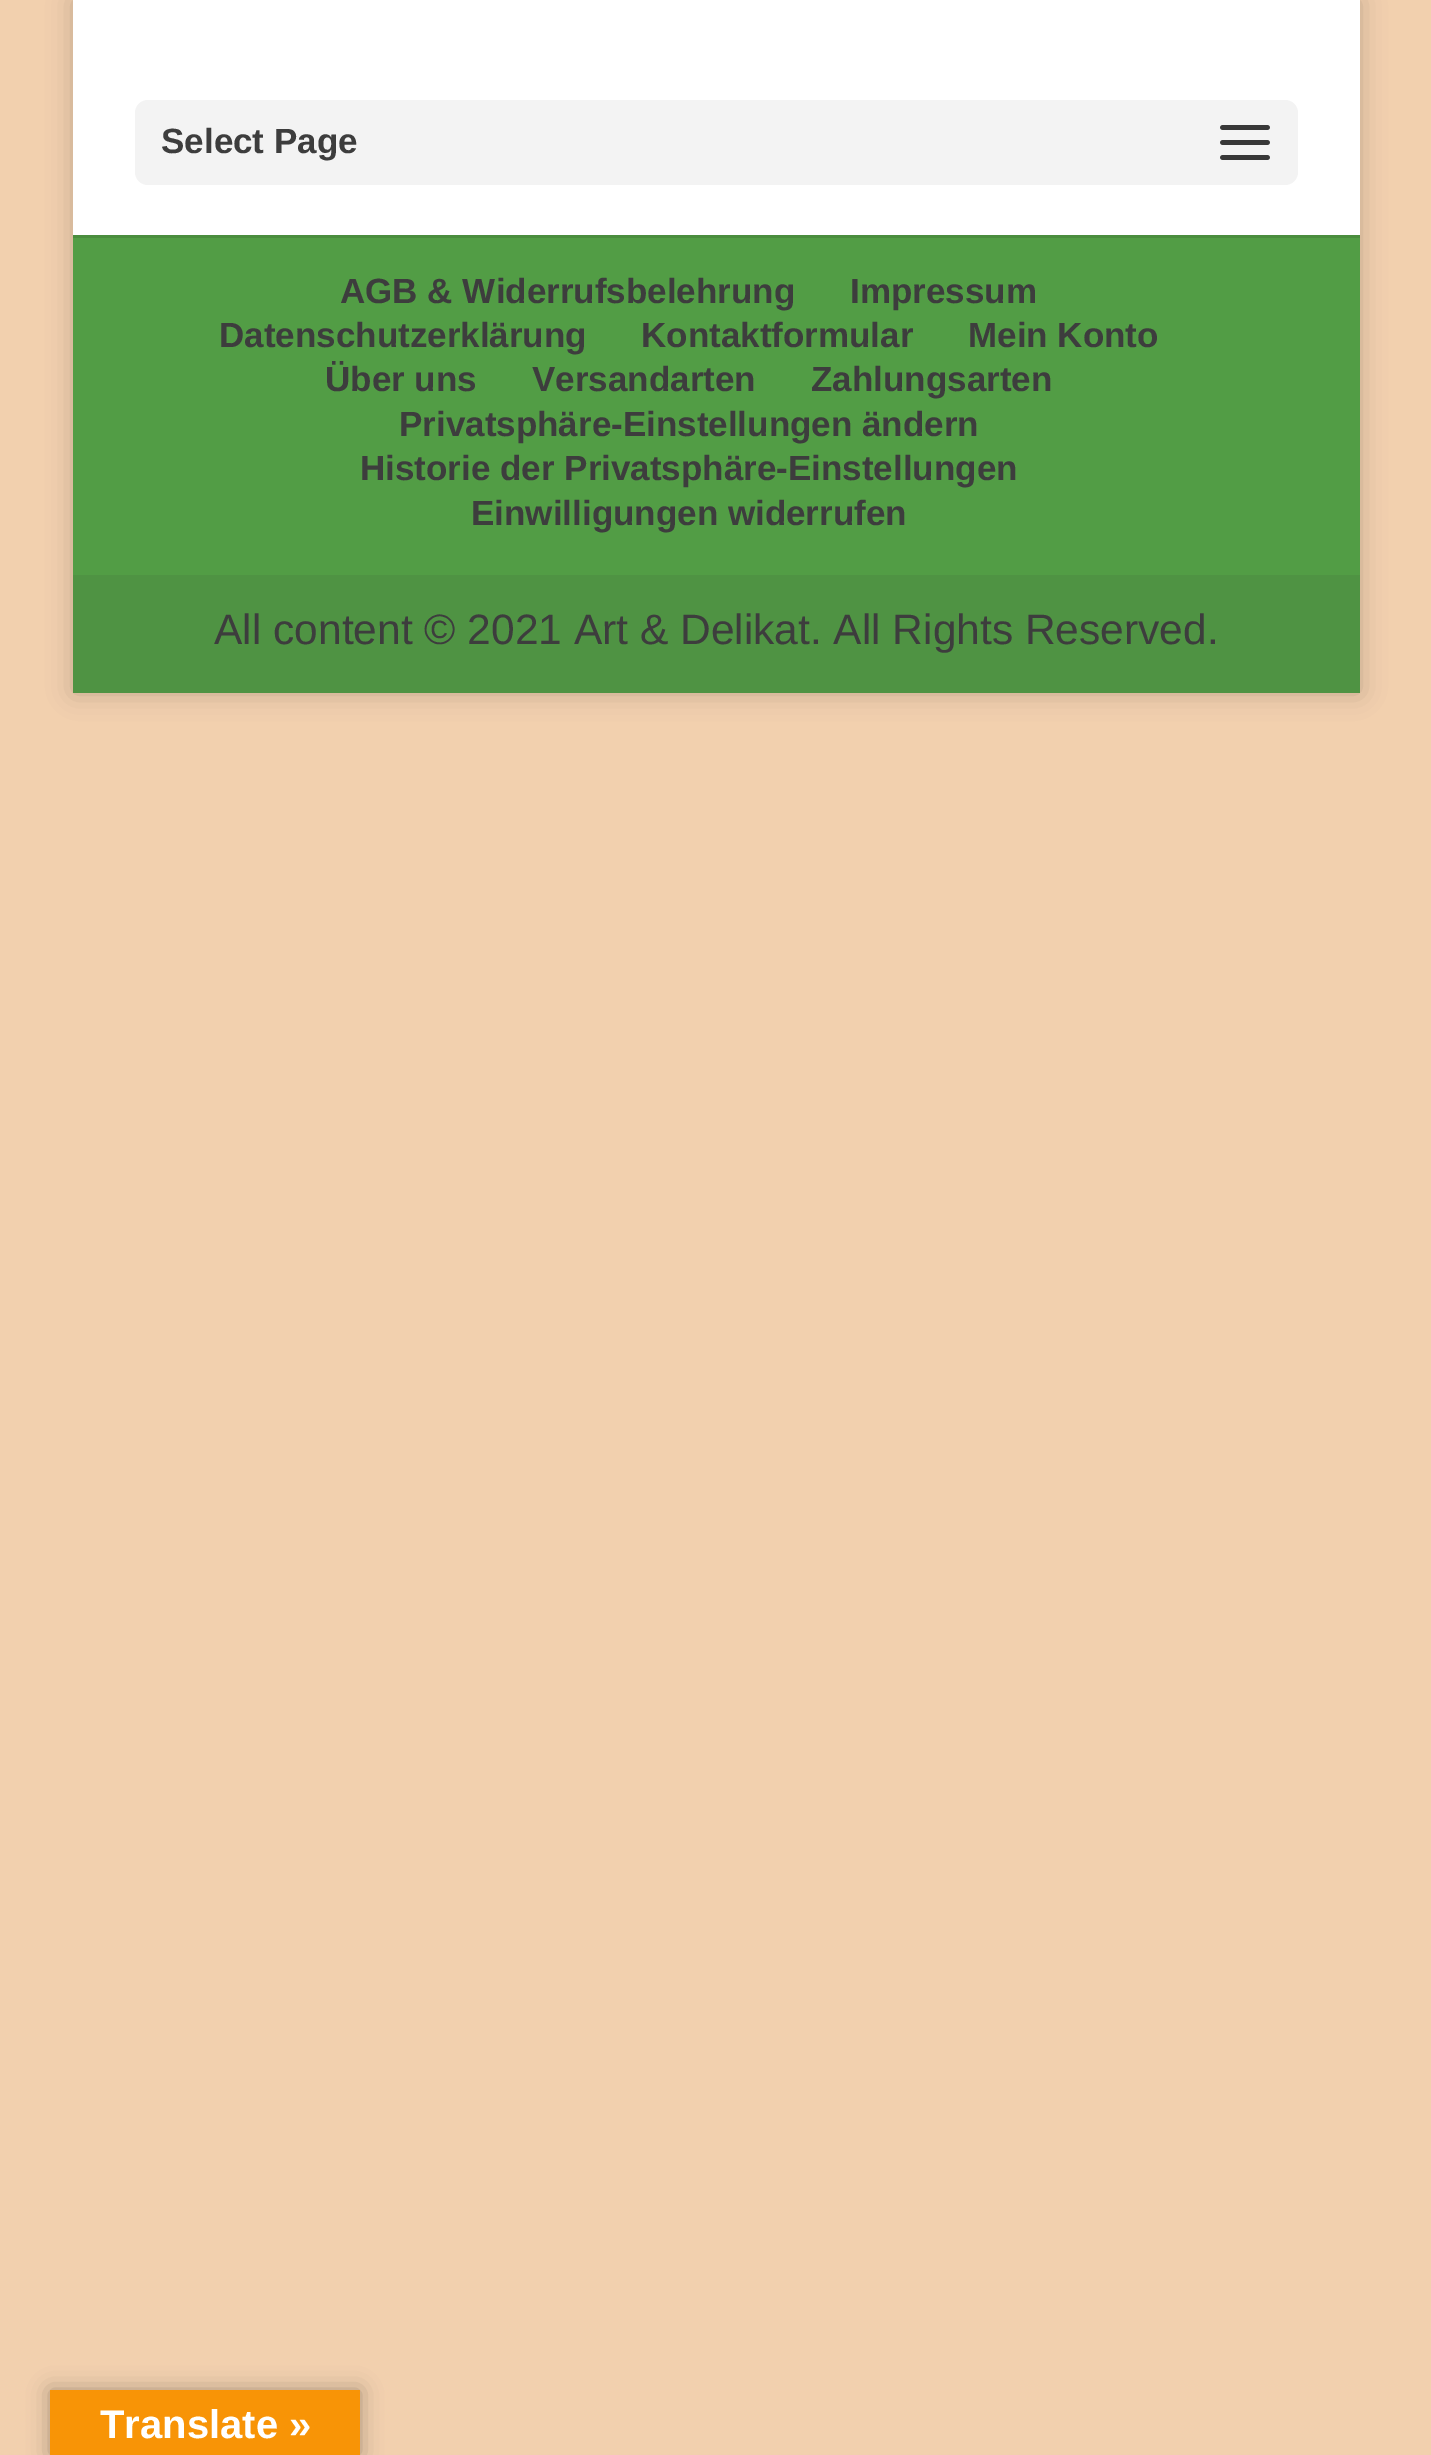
%!PS-Adobe-3.0
%%BoundingBox: 0 0 1431 2455
%%LanguageLevel: 3
%%Pages: 1
%%EndComments
%%BeginProlog
/setalpha { dup .setfillconstantalpha .setstrokeconstantalpha } def
/rrect { 5 dict begin { /r /h /w /y /x } { exch def } forall
  x r add y moveto x w add y 2 copy h add r arct x w add y h add x 1 index r arct
  x y h add x y r arct x y 2 copy exch w add exch r arct closepath end } def
/softshadow { 12 dict begin { /a /b /q /h /w /y /x } { exch def } forall gsave /was 0 def
  9 -2 -9 { dup b mul 4 div /e exch def 1 sub .425 mul 2.718 exch exp 1 add a .99 .min exch div /now exch def
    1 1 now sub 1 was sub div sub setalpha /was now def
    w h .min e 2 mul add 0 gt { x e sub y e sub w e 2 mul add h e 2 mul add
      q e add b .6 mul add w h .min 2 div e add .min 0 .max rrect fill } if } for grestore end } def
/drawimage { 5 dict begin { /h /w /y /x /name } { exch def } forall
  gsave x y translate w h scale
  w h 8 [w 0 0 h 0 0] name (r) file false 3 colorimage grestore end } def
%%EndProlog
%%BeginSetup
<< /PageSize [1431 2455] /PageUsesTransparency true >> setpagedevice
%%EndSetup
%%Page: 1 1
0 .pushpdf14devicefilter
0 2455 translate 1 -1 scale
4 setmiterlimit
0.949 0.816 0.682 setrgbcolor
0 0 1431 2455 rectfill
0 setgray
73 0 1287 693 0 12.5 0.2 softshadow
0.29 0.553 0.243 setrgbcolor
73 235 1287 3 rectfill
1 setgray
73 0 1287 235 rectfill
0.953 setgray
135 100 1163 85 13 rrect fill
(images/1.raw) 1220 125 50 35 drawimage
0.322 0.616 0.271 setrgbcolor
73 238 1287 337 rectfill
0.31 0.576 0.263 setrgbcolor
73 575 1287 118 rectfill
0 setgray
50 2390 310 65 0 11 0.3 softshadow
0.973 0.58 0.024 setrgbcolor
50 2390 310 65 rectfill
/LiberationSans-Bold [35 0 0 -35 0 0] selectfont
0.239 setgray
161 153 moveto (Select Page) show
340 303 moveto (AGB & Widerrufsbelehrung) show
850 303 moveto (Impressum) show
219 347 moveto (Datenschutzerklärung) show
641 347 moveto (Kontaktformular) show
968 347 moveto (Mein Konto) show
325 391 moveto (Über uns) show
532 391 moveto (Versandarten) show
811 391 moveto (Zahlungsarten) show
399 436 moveto (Privatsphäre-Einstellungen ändern) show
360 480 moveto (Historie der Privatsphäre-Einstellungen) show
471 525 moveto (Einwilligungen widerrufen) show
/LiberationSans-Regular [42.5 0 0 -42.5 0 0] selectfont
214 644 moveto (All content © 2021 Art & Delikat. All Rights Reserved.) show
/LiberationSans-Bold [40 0 0 -40 0 0] selectfont
1 setgray
100 2438 moveto (Translate ») show
.poppdf14devicefilter showpage
%%EOF
